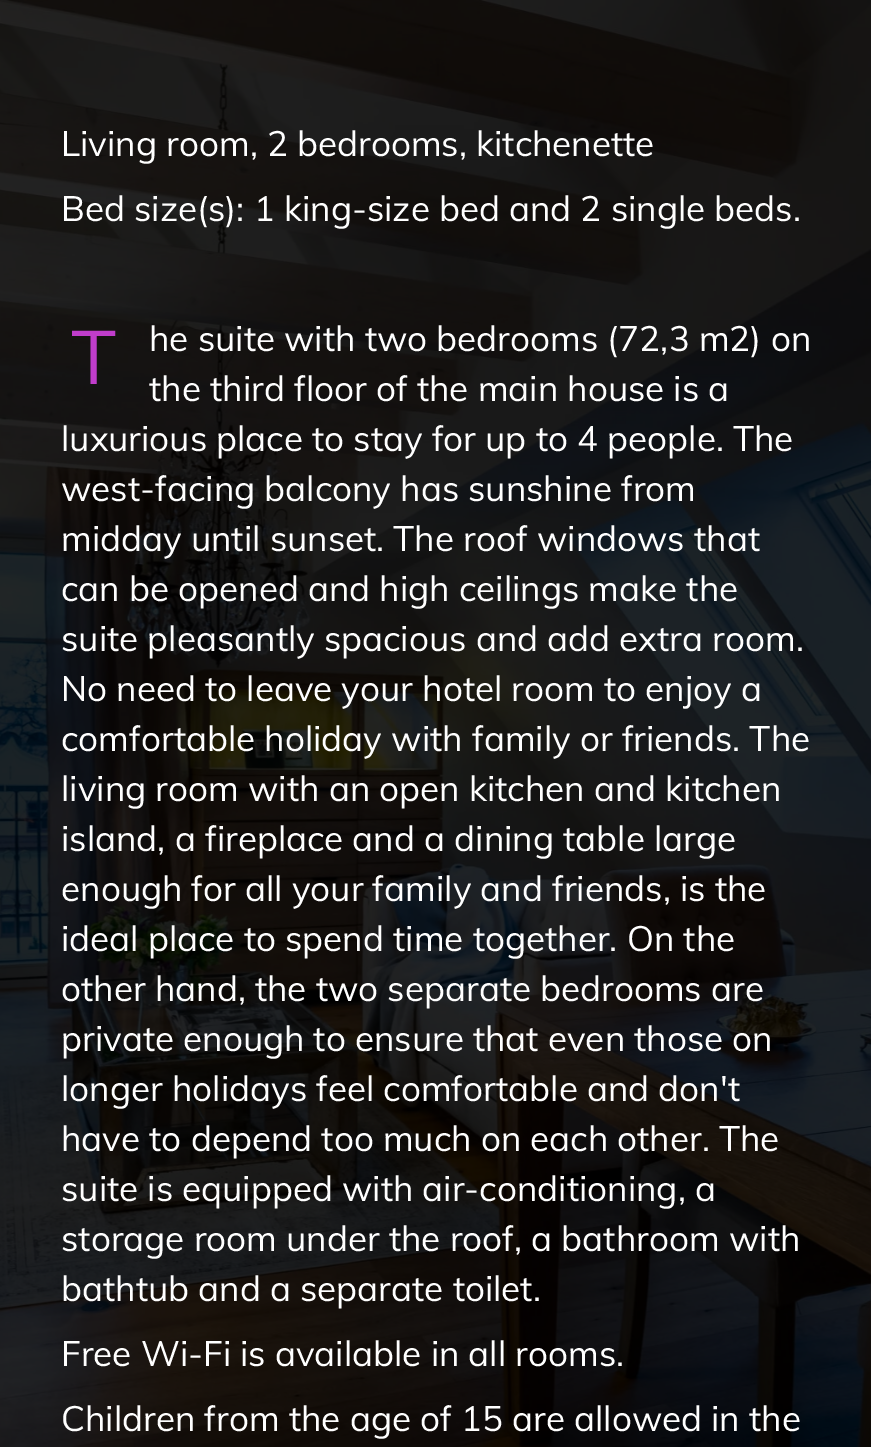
%!PS-Adobe-3.0
%%BoundingBox: 0 0 871 1447
%%LanguageLevel: 3
%%Pages: 1
%%EndComments
%%BeginProlog
/drawimage { 5 dict begin { /h /w /y /x /name } { exch def } forall
  gsave x y translate w h scale
  w h 8 [w 0 0 h 0 0] name (r) file false 3 colorimage grestore end } def
%%EndProlog
%%BeginSetup
<< /PageSize [871 1447] >> setpagedevice
%%EndSetup
%%Page: 1 1
0 1447 translate 1 -1 scale
4 setmiterlimit
1 setgray
0 0 871 1447 rectfill
(images/1.raw) 0 0 871 1447 drawimage
/Muli-Regular [35 0 0 -35 0 0] selectfont
61 156 moveto (Living room, 2 bedrooms, kitchenette) show
61 221 moveto (Bed size\(s\): 1 king-size bed and 2 single beds.) show
/Muli-Regular [75 0 0 -75 0 0] selectfont
0.753 0.239 0.796 setrgbcolor
71 384 moveto (T) show
/Muli-Regular [35 0 0 -35 0 0] selectfont
1 setgray
149 351 moveto (he suite with two bedrooms \(72,3 m2\) on) show
149 401 moveto (the third floor of the main house is a) show
61 451 moveto (luxurious place to stay for up to 4 people. The) show
61 501 moveto (west-facing balcony has sunshine from) show
61 551 moveto (midday until sunset. The roof windows that) show
61 601 moveto (can be opened and high ceilings make the) show
61 651 moveto (suite pleasantly spacious and add extra room.) show
61 701 moveto (No need to leave your hotel room to enjoy a) show
61 751 moveto (comfortable holiday with family or friends. The) show
61 801 moveto (living room with an open kitchen and kitchen) show
61 851 moveto (island, a fireplace and a dining table large) show
61 901 moveto (enough for all your family and friends, is the) show
61 951 moveto (ideal place to spend time together. On the) show
61 1001 moveto (other hand, the two separate bedrooms are) show
61 1051 moveto (private enough to ensure that even those on) show
61 1101 moveto (longer holidays feel comfortable and don't) show
61 1151 moveto (have to depend too much on each other. The) show
61 1201 moveto (suite is equipped with air-conditioning, a) show
61 1251 moveto (storage room under the roof, a bathroom with) show
61 1301 moveto (bathtub and a separate toilet.) show
61 1366 moveto (Free Wi-Fi is available in all rooms.) show
61 1431 moveto (Children from the age of 15 are allowed in the) show
showpage
%%EOF
